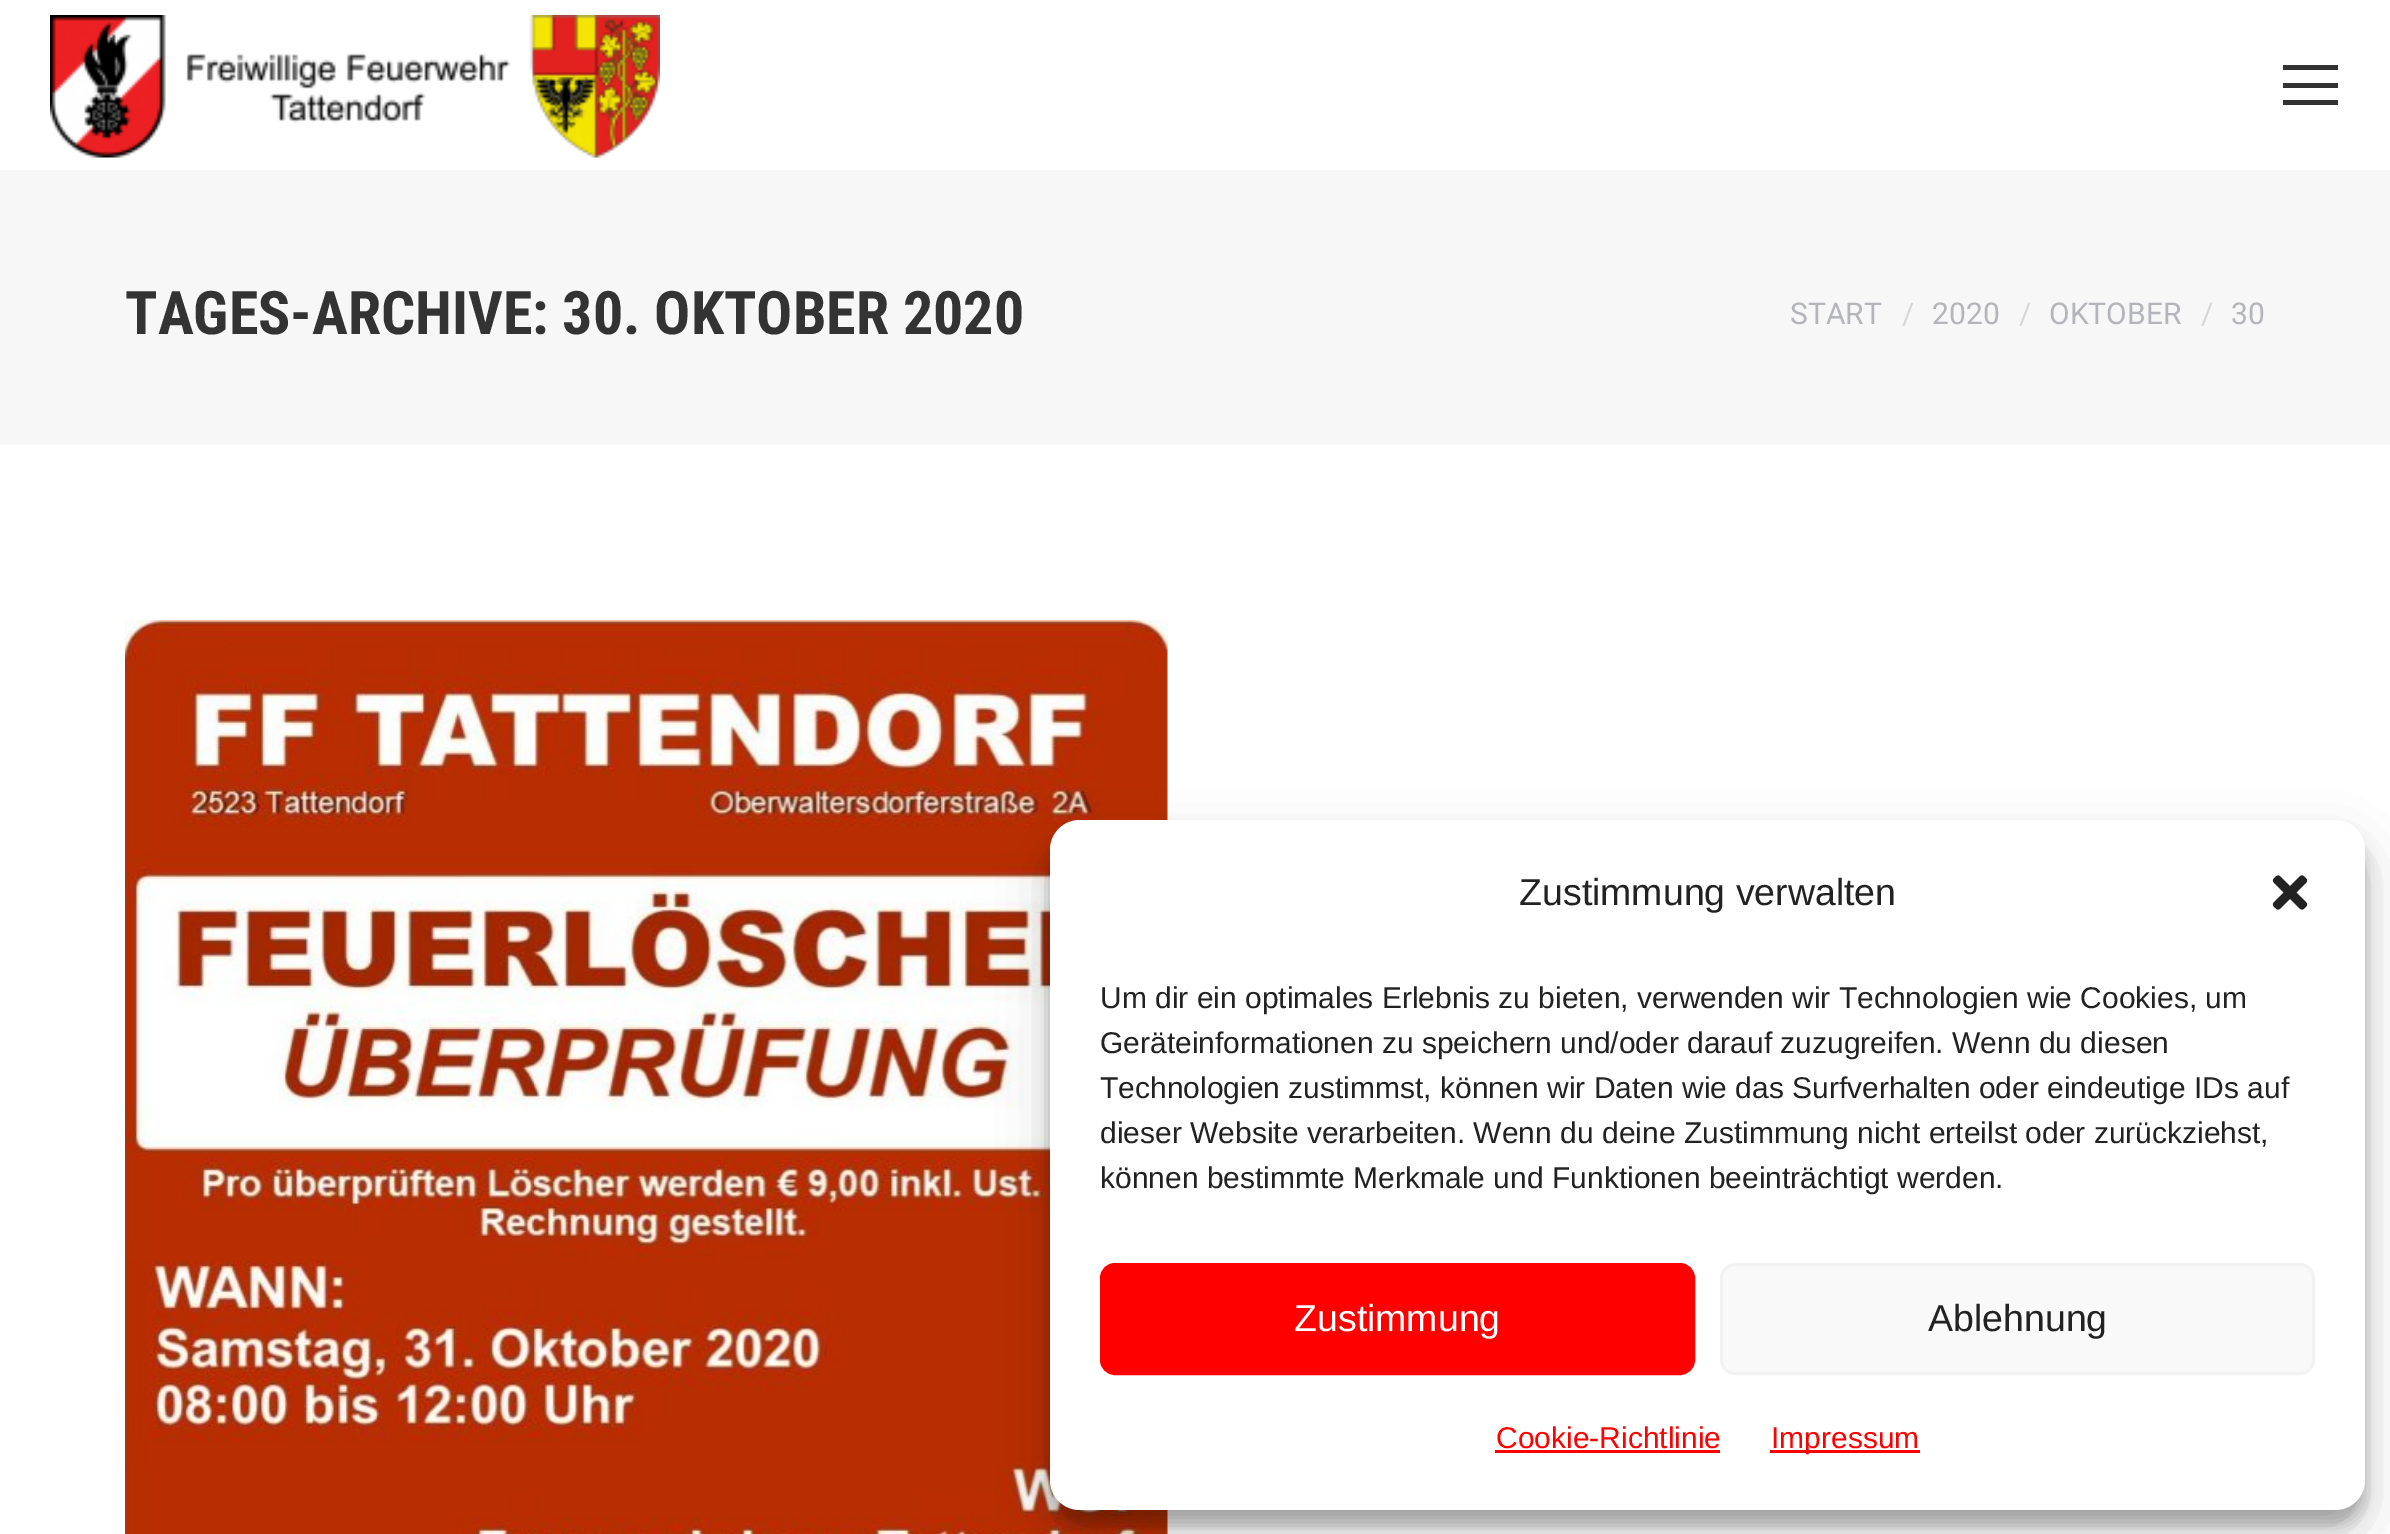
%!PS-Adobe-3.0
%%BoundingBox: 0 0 2390 1534
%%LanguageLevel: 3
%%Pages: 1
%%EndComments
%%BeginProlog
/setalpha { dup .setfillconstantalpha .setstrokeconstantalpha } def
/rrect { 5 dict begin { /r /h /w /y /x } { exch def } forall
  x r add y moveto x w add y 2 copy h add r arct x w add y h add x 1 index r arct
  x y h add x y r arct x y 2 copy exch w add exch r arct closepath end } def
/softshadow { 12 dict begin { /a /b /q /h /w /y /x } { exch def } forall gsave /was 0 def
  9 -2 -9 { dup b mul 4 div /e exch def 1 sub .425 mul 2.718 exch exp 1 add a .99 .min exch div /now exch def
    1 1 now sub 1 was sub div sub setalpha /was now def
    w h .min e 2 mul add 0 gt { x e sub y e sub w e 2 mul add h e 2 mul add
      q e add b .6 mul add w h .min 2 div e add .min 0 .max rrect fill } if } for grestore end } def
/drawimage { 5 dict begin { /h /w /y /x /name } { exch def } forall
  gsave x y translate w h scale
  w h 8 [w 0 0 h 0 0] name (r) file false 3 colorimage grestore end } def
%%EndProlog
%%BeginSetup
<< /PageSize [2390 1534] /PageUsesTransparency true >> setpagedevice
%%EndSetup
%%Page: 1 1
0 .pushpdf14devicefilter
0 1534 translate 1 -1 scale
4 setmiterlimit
1 setgray
0 0 2390 1534 rectfill
(images/1.raw) 50 15 610 143 drawimage
0.2 setgray
2283 65 55 5 rectfill
2283 83 55 5 rectfill
2283 100 55 5 rectfill
0.969 setgray
0 170 2390 275 rectfill
1166 620 2 914 rectfill
(images/2.raw) 125 620 1043 914 drawimage
0 setgray
1050 835 1315 690 30 7.5 0.23 softshadow
1050 845 1315 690 30 25 0.19 softshadow
1 setgray
1050 820 1315 690 30 rrect fill
(images/3.raw) 2272 875 36 35 drawimage
1 0 0 setrgbcolor
1101.5 1264.5 592 109 13.5 rrect gsave fill grestore
3 setlinewidth
stroke
0.976 setgray
1721.5 1264.5 592 109 13.5 rrect gsave fill grestore
0.949 setgray
stroke
1 0 0 setrgbcolor
1495 1450 225 3 rectfill
1770 1450 150 3 rectfill
/RobotoCondensed-Bold [60 0 0 -60 0 0] selectfont
0.2 setgray
125 334 moveto (TAGES-ARCHIVE: 30. OKTOBER 2020) show
/Roboto-Regular [30 0 0 -30 0 0] selectfont
0.706 0.71 0.733 setrgbcolor
1790 324 moveto (START) show
0.839 0.839 0.851 setrgbcolor
1902 324 moveto (/) show
0.706 0.71 0.733 setrgbcolor
1932 324 moveto (2020) show
0.839 0.839 0.851 setrgbcolor
2019 324 moveto (/) show
0.706 0.71 0.733 setrgbcolor
2049 324 moveto (OKTOBER) show
0.839 0.839 0.851 setrgbcolor
2201 324 moveto (/) show
0.706 0.71 0.733 setrgbcolor
2231 324 moveto (30) show
/LiberationSans-Regular [37.5 0 0 -37.5 0 0] selectfont
0.133 setgray
1519 905 moveto (Zustimmung verwalten) show
/LiberationSans-Regular [30 0 0 -30 0 0] selectfont
1100 1008 moveto (Um dir ein optimales Erlebnis zu bieten, verwenden wir Technologien wie Cookies, um) show
1100 1053 moveto (Geräteinformationen zu speichern und/oder darauf zuzugreifen. Wenn du diesen) show
1100 1098 moveto (Technologien zustimmst, können wir Daten wie das Surfverhalten oder eindeutige IDs auf) show
1100 1143 moveto (dieser Website verarbeiten. Wenn du deine Zustimmung nicht erteilst oder zurückziehst,) show
1100 1188 moveto (können bestimmte Merkmale und Funktionen beeinträchtigt werden.) show
/LiberationSans-Regular [37.5 0 0 -37.5 0 0] selectfont
1 setgray
1294 1331 moveto (Zustimmung) show
0.133 setgray
1928 1331 moveto (Ablehnung) show
/LiberationSans-Regular [30 0 0 -30 0 0] selectfont
1 0 0 setrgbcolor
1496 1448 moveto (Cookie-Richtlinie) show
1771 1448 moveto (Impressum) show
.poppdf14devicefilter showpage
%%EOF
